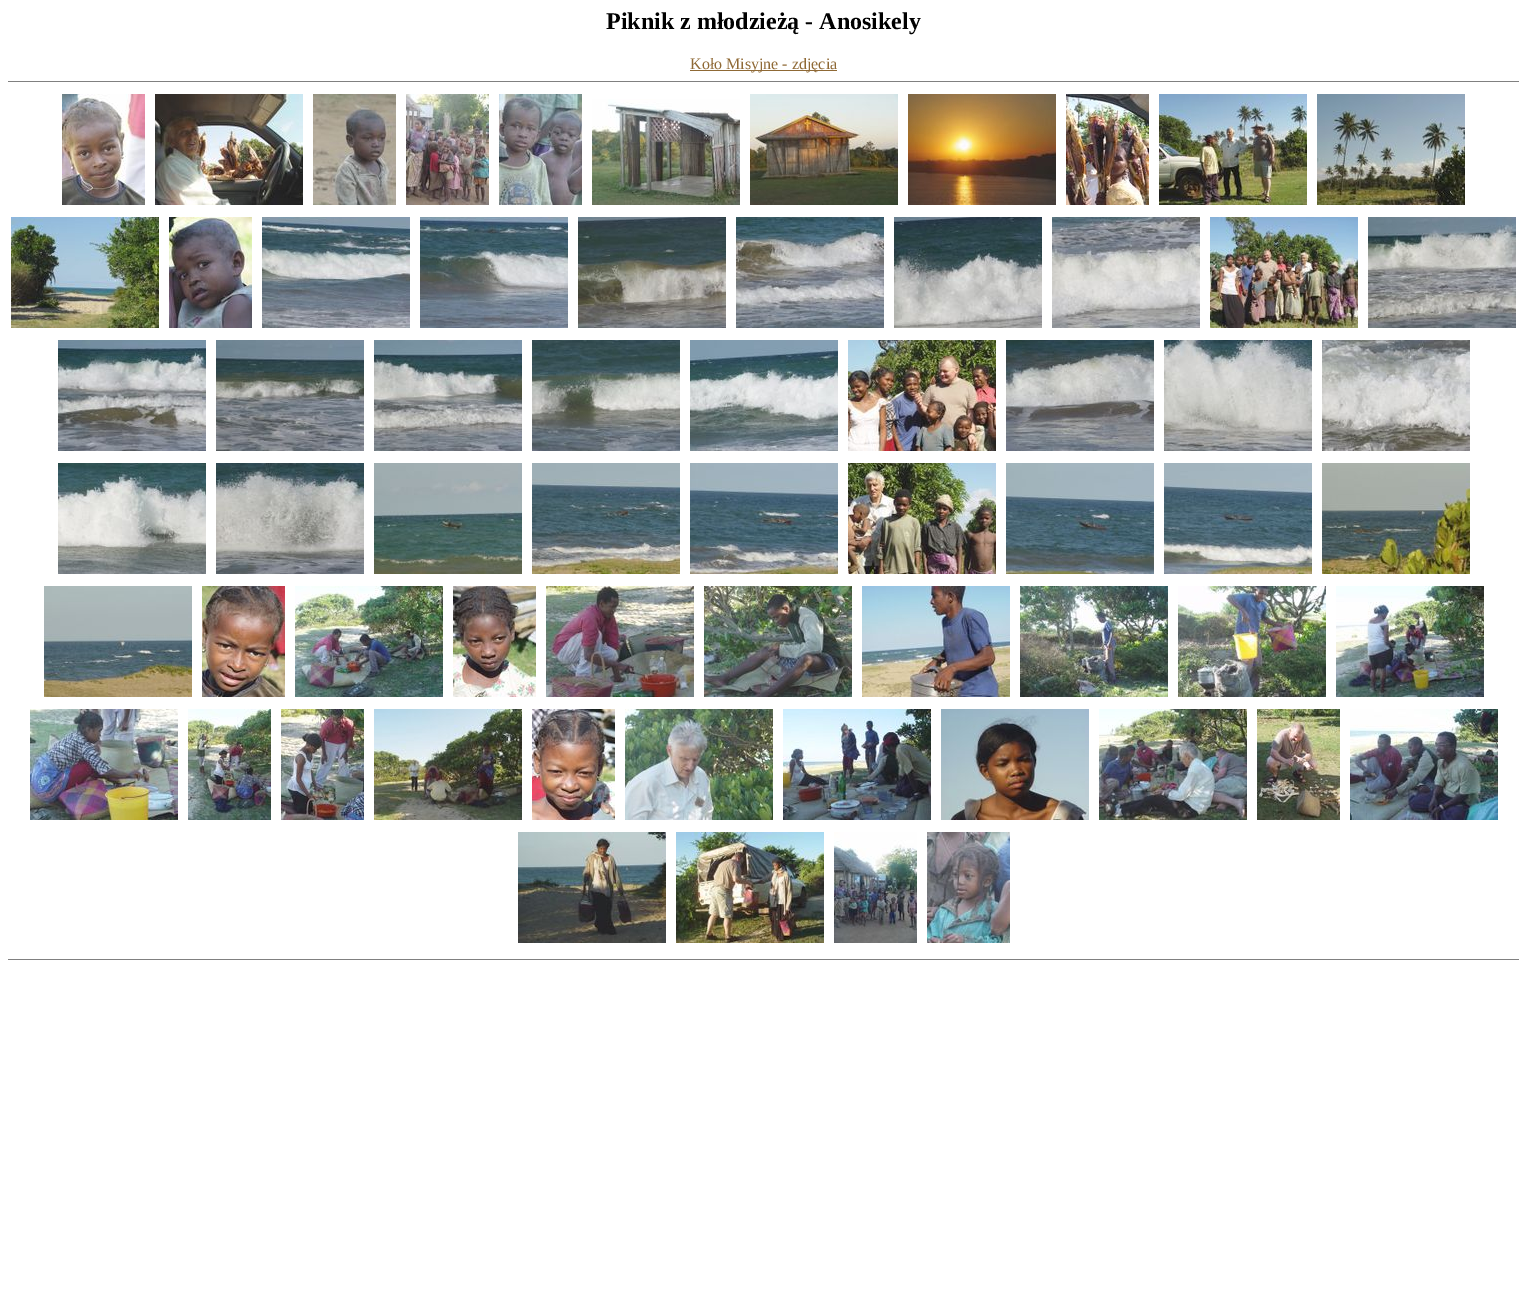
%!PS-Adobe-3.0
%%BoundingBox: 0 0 1527 1304
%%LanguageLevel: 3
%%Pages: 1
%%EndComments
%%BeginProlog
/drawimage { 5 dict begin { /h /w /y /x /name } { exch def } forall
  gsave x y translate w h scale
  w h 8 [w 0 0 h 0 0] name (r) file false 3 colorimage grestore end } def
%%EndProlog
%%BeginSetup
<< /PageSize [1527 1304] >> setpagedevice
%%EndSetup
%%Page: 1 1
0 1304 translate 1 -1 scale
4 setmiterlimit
1 setgray
0 0 1527 1304 rectfill
0.561 0.412 0.208 setrgbcolor
690 70 147 1 rectfill
0.502 setgray
8 81 1511 1 rectfill
(images/1.raw) 62 94 83 111 drawimage
(images/2.raw) 155 94 148 111 drawimage
(images/3.raw) 313 94 83 111 drawimage
(images/4.raw) 406 94 83 111 drawimage
(images/5.raw) 499 94 83 111 drawimage
(images/6.raw) 592 99 148 106 drawimage
(images/7.raw) 750 94 148 111 drawimage
(images/8.raw) 908 94 148 111 drawimage
(images/9.raw) 1066 94 83 111 drawimage
(images/10.raw) 1159 94 148 111 drawimage
(images/11.raw) 1317 94 148 111 drawimage
(images/12.raw) 11 217 148 111 drawimage
(images/13.raw) 169 217 83 111 drawimage
(images/14.raw) 262 217 148 111 drawimage
(images/15.raw) 420 217 148 111 drawimage
(images/16.raw) 578 217 148 111 drawimage
(images/17.raw) 736 217 148 111 drawimage
(images/18.raw) 894 217 148 111 drawimage
(images/19.raw) 1052 217 148 111 drawimage
(images/20.raw) 1210 217 148 111 drawimage
(images/21.raw) 1368 217 148 111 drawimage
(images/22.raw) 58 340 148 111 drawimage
(images/23.raw) 216 340 148 111 drawimage
(images/24.raw) 374 340 148 111 drawimage
(images/25.raw) 532 340 148 111 drawimage
(images/26.raw) 690 340 148 111 drawimage
(images/27.raw) 848 340 148 111 drawimage
(images/28.raw) 1006 340 148 111 drawimage
(images/29.raw) 1164 340 148 111 drawimage
(images/30.raw) 1322 340 148 111 drawimage
(images/31.raw) 58 463 148 111 drawimage
(images/32.raw) 216 463 148 111 drawimage
(images/33.raw) 374 463 148 111 drawimage
(images/34.raw) 532 463 148 111 drawimage
(images/35.raw) 690 463 148 111 drawimage
(images/36.raw) 848 463 148 111 drawimage
(images/37.raw) 1006 463 148 111 drawimage
(images/38.raw) 1164 463 148 111 drawimage
(images/39.raw) 1322 463 148 111 drawimage
(images/40.raw) 44 586 148 111 drawimage
(images/41.raw) 202 586 83 111 drawimage
(images/42.raw) 295 586 148 111 drawimage
(images/43.raw) 453 586 83 111 drawimage
(images/44.raw) 546 586 148 111 drawimage
(images/45.raw) 704 586 148 111 drawimage
(images/46.raw) 862 586 148 111 drawimage
(images/47.raw) 1020 586 148 111 drawimage
(images/48.raw) 1178 586 148 111 drawimage
(images/49.raw) 1336 586 148 111 drawimage
(images/50.raw) 30 709 148 111 drawimage
(images/51.raw) 188 709 83 111 drawimage
(images/52.raw) 281 709 83 111 drawimage
(images/53.raw) 374 709 148 111 drawimage
(images/54.raw) 532 709 83 111 drawimage
(images/55.raw) 625 709 148 111 drawimage
(images/56.raw) 783 709 148 111 drawimage
(images/57.raw) 941 709 148 111 drawimage
(images/58.raw) 1099 709 148 111 drawimage
(images/59.raw) 1257 709 83 111 drawimage
(images/60.raw) 1350 709 148 111 drawimage
(images/61.raw) 518 832 148 111 drawimage
(images/62.raw) 676 832 148 111 drawimage
(images/63.raw) 834 832 83 111 drawimage
(images/64.raw) 927 832 83 111 drawimage
8 959 1511 1 rectfill
/LiberationSerif-Bold [24 0 0 -24 0 0] selectfont
0 setgray
606 29 moveto (Piknik z młodzieżą - Anosikely) show
/LiberationSerif-Regular [16 0 0 -16 0 0] selectfont
0.561 0.412 0.208 setrgbcolor
690 69 moveto (Koło Misyjne - zdjęcia) show
showpage
%%EOF
